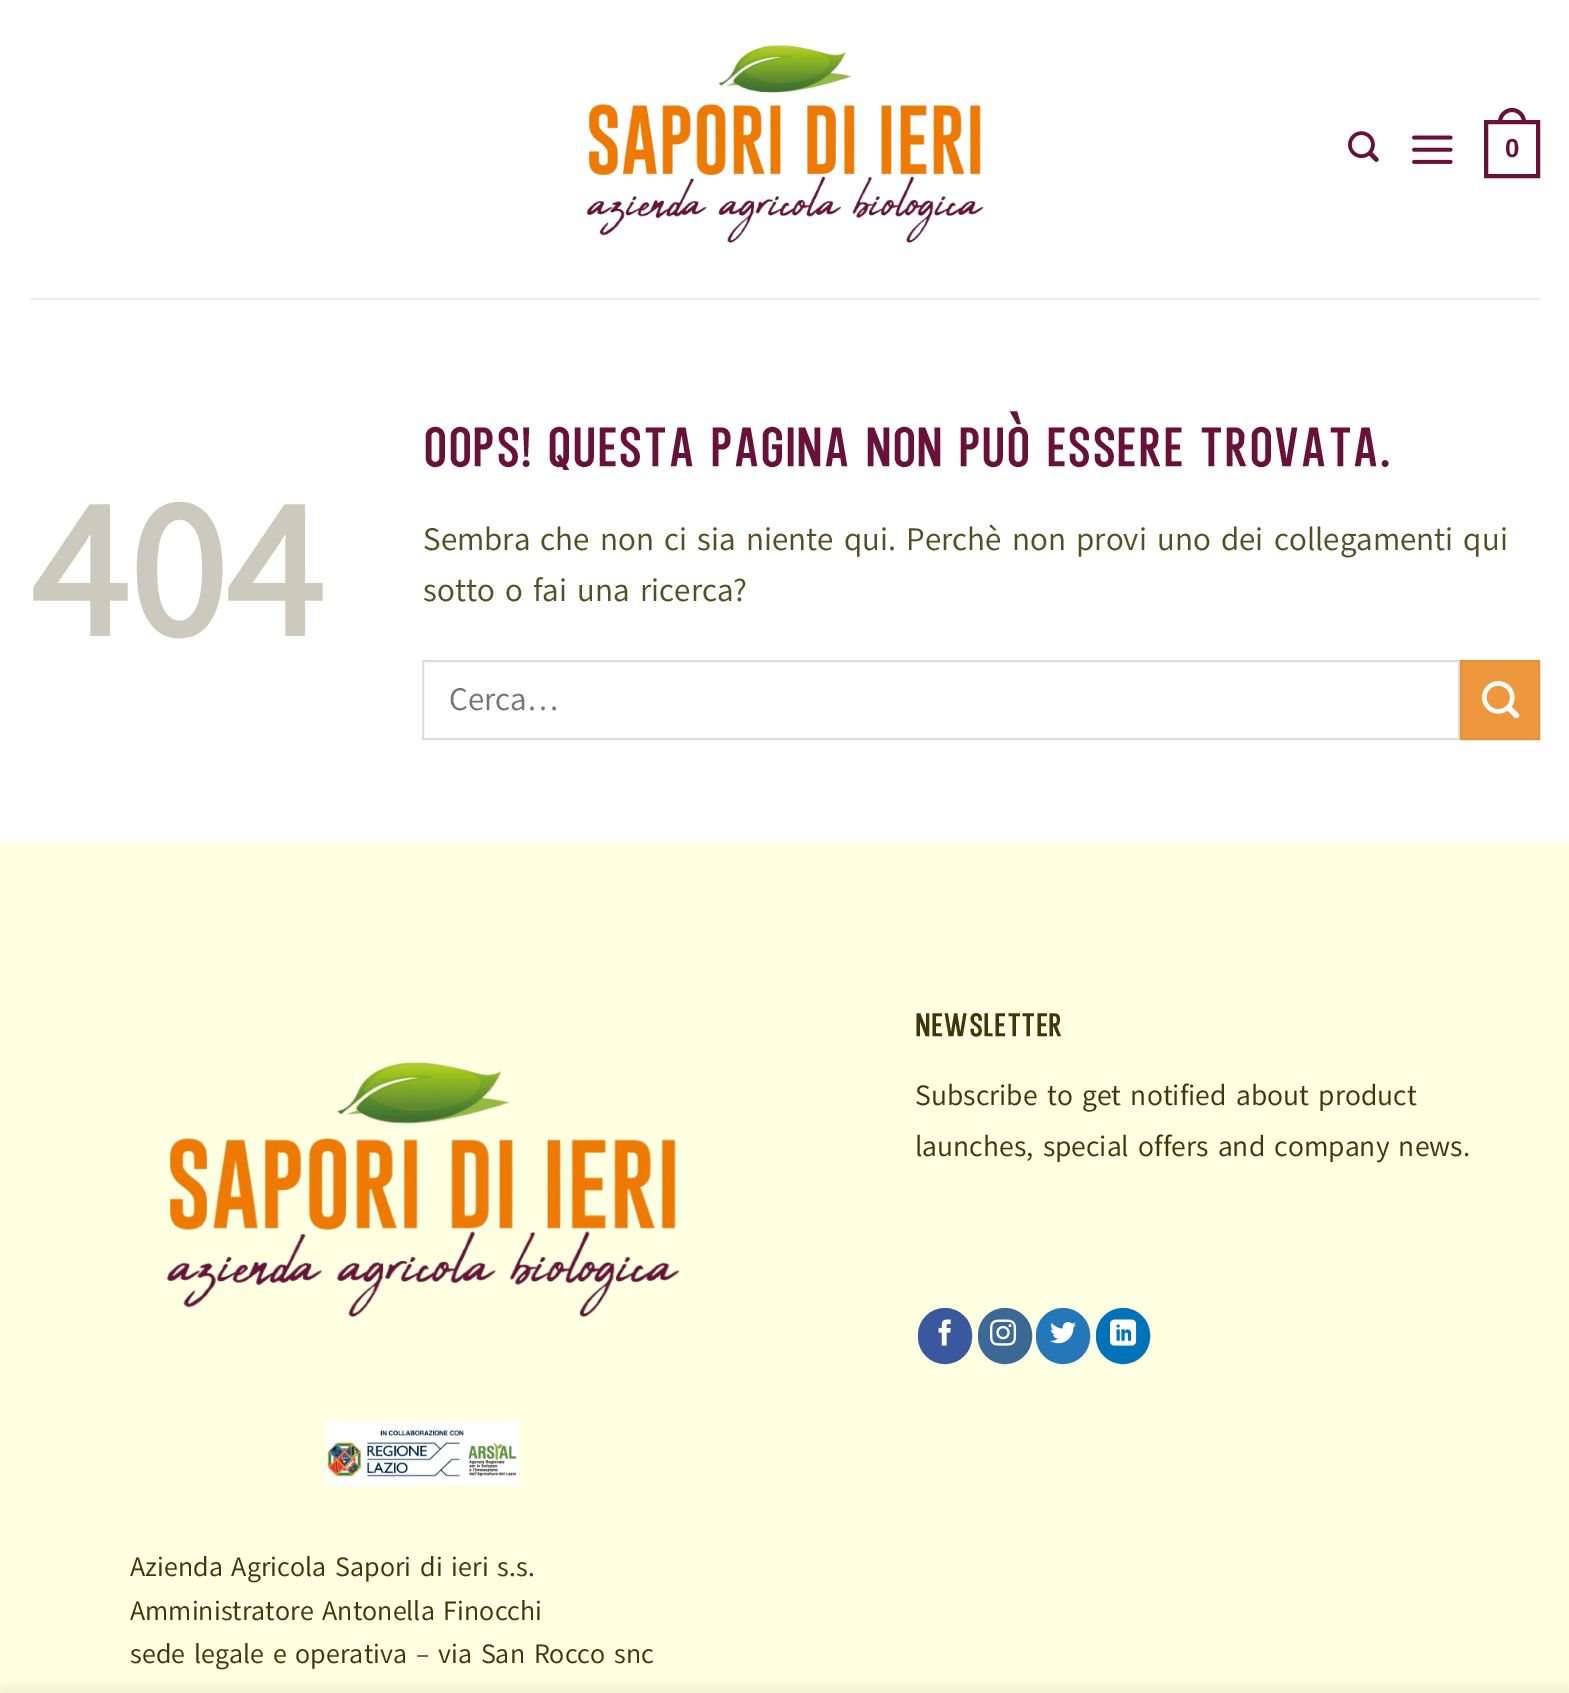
%!PS-Adobe-3.0
%%BoundingBox: 0 0 1569 1693
%%LanguageLevel: 3
%%Pages: 1
%%EndComments
%%BeginProlog
/setalpha { dup .setfillconstantalpha .setstrokeconstantalpha } def
/rrect { 5 dict begin { /r /h /w /y /x } { exch def } forall
  x r add y moveto x w add y 2 copy h add r arct x w add y h add x 1 index r arct
  x y h add x y r arct x y 2 copy exch w add exch r arct closepath end } def
/softshadow { 12 dict begin { /a /b /q /h /w /y /x } { exch def } forall gsave /was 0 def
  9 -2 -9 { dup b mul 4 div /e exch def 1 sub .425 mul 2.718 exch exp 1 add a .99 .min exch div /now exch def
    1 1 now sub 1 was sub div sub setalpha /was now def
    w h .min e 2 mul add 0 gt { x e sub y e sub w e 2 mul add h e 2 mul add
      q e add b .6 mul add w h .min 2 div e add .min 0 .max rrect fill } if } for grestore end } def
/drawimage { 5 dict begin { /h /w /y /x /name } { exch def } forall
  gsave x y translate w h scale
  w h 8 [w 0 0 h 0 0] name (r) file false 3 colorimage grestore end } def
%%EndProlog
%%BeginSetup
<< /PageSize [1569 1693] /PageUsesTransparency true >> setpagedevice
%%EndSetup
%%Page: 1 1
0 .pushpdf14devicefilter
0 1693 translate 1 -1 scale
4 setmiterlimit
1 setgray
0 0 1569 1693 rectfill
(images/1.raw) 586 45 398 198 drawimage
(images/2.raw) 1348 131 31 31 drawimage
(images/3.raw) 1412 135 41 29 drawimage
0.408 0.071 0.227 setrgbcolor
4 setlinewidth
1486 122 52 54 rectstroke
newpath 1512 108 moveto 1519.5 108 1526 114.5 1526 122 curveto 1526 124 lineto 1498 124 lineto 1498 122 lineto 1498 114.5 1504.5 108 1512 108 curveto closepath 1512 112 moveto 1517.5 112 1522 116.5 1522 122 curveto 1522 124 lineto 1502 124 lineto 1502 122 lineto 1502 116.5 1506.5 112 1512 112 curveto closepath eofill
0.933 0.929 0.914 setrgbcolor
30 298 1510 2 rectfill
0.867 setgray
2 setlinewidth
423 661 1036 78 rectstroke
0.933 0.596 0.239 setrgbcolor
newpath 1461 661 moveto 1539 661 lineto 1539 739 lineto 1461 739 lineto closepath gsave fill grestore
0.886 0.565 0.227 setrgbcolor
stroke
(images/4.raw) 1482 681 38 38 drawimage
1 1 0.882 setrgbcolor
0 842 1569 851 rectfill
(images/5.raw) 167 1062 513 255 drawimage
(images/6.raw) 326 1420 194 66 drawimage
0.227 0.345 0.616 setrgbcolor
919 1309 52 54 26 rrect gsave fill grestore
stroke
(images/7.raw) 938 1319 13 27 drawimage
0.231 0.412 0.58 setrgbcolor
979 1309 52 54 26 rrect gsave fill grestore
stroke
(images/8.raw) 990 1319 27 27 drawimage
0.141 0.471 0.729 setrgbcolor
1037 1309 52 54 26 rrect gsave fill grestore
stroke
(images/9.raw) 1050 1322 26 22 drawimage
0 0.447 0.718 setrgbcolor
1097 1309 52 54 26 rrect gsave fill grestore
stroke
(images/10.raw) 1110 1319 27 27 drawimage
0 setgray
0 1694 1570 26 0 9 0.14 softshadow
/LiberationSans-Bold [26 0 0 -26 0 0] selectfont
0.408 0.071 0.227 setrgbcolor
1505 157 moveto (0) show
/Akatab-Bold [192 0 0 -192 0 0] selectfont
0.8 0.792 0.741 setrgbcolor
30 636 moveto (404) show
/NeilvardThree-Regular [54.4 0 0 -54.4 0 0] selectfont
0.408 0.071 0.227 setrgbcolor
423 466 moveto (Oops! Questa pagina non può essere trovata.) show
/Akatab-Regular [32 0 0 -32 0 0] selectfont
0.333 0.302 0.137 setrgbcolor
423 550 moveto (Sembra che non ci sia niente qui. Perchè non provi uno dei collegamenti qui) show
423 601 moveto (sotto o fai una ricerca?) show
0.459 setgray
449 710 moveto (Cerca…) show
/NeilvardThree-Regular [32 0 0 -32 0 0] selectfont
0.251 0.212 0.043 setrgbcolor
915 1036 moveto (Newsletter) show
/Akatab-Regular [28.75 0 0 -28.75 0 0] selectfont
915 1105 moveto (Subscribe to get notified about product) show
915 1156 moveto (launches, special offers and company news.) show
/Akatab-Regular [27.25 0 0 -27.25 0 0] selectfont
130 1576 moveto (Azienda Agricola Sapori di ieri s.s.) show
130 1620 moveto (Amministratore Antonella Finocchi) show
130 1663 moveto (sede legale e operativa – via San Rocco snc) show
.poppdf14devicefilter showpage
%%EOF
